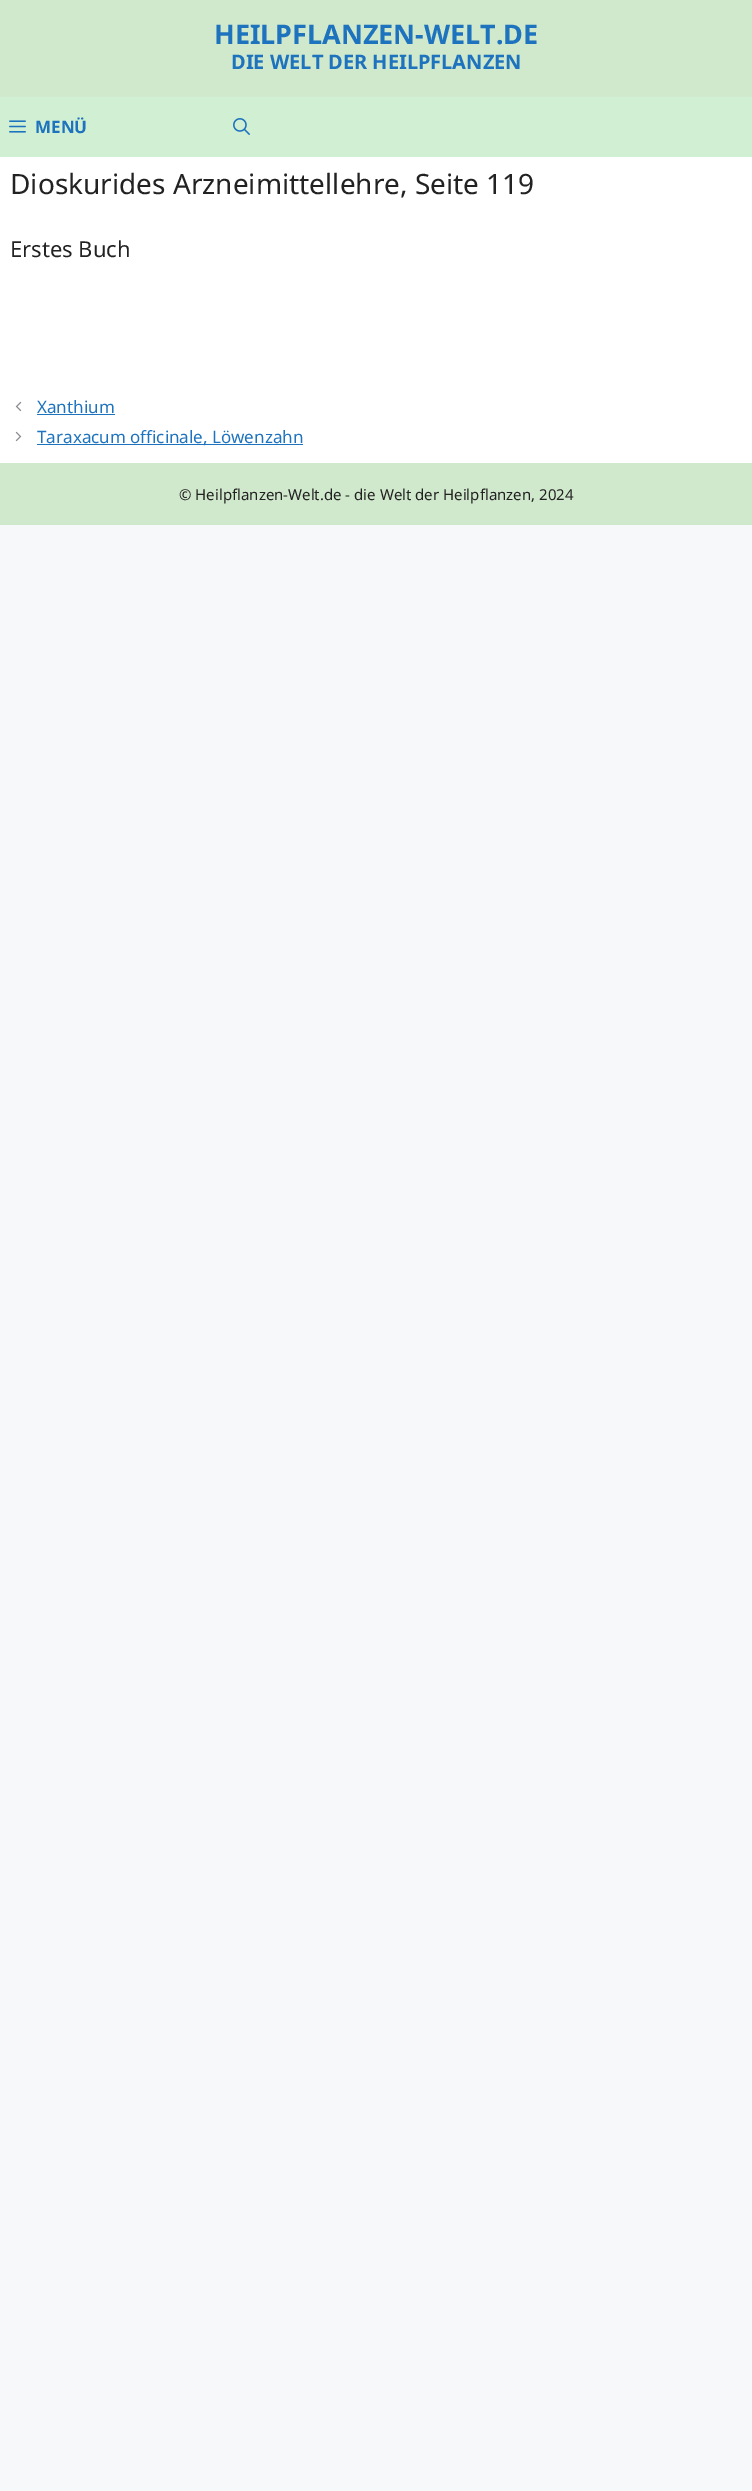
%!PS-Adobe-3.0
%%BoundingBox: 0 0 752 2491
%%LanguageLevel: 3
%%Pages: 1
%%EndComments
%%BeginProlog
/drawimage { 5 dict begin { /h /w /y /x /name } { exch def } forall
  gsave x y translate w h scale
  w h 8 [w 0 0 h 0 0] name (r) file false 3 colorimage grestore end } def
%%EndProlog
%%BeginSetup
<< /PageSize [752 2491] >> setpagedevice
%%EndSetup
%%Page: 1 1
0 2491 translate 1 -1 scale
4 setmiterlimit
0.969 0.973 0.976 setrgbcolor
0 0 752 2491 rectfill
0.816 0.91 0.796 setrgbcolor
0 0 752 97 rectfill
0.816 0.937 0.827 setrgbcolor
0 97 752 60 rectfill
(images/1.raw) 9 120 17 13 drawimage
(images/2.raw) 233 118 17 17 drawimage
1 setgray
0 157 752 306 rectfill
(images/3.raw) 15 401 7 11 drawimage
0.118 0.451 0.745 setrgbcolor
37 414 78 1 rectfill
(images/4.raw) 15 431 7 11 drawimage
37 444 266 1 rectfill
0.816 0.91 0.796 setrgbcolor
0 463 752 62 rectfill
/NotoSans-Bold [27 0 0 -27 0 0] selectfont
0.118 0.451 0.745 setrgbcolor
214 44 moveto (HEILPFLANZEN-WELT.DE) show
/NotoSans-Bold [20 0 0 -20 0 0] selectfont
231 69 moveto (DIE WELT DER HEILPFLANZEN) show
/NotoSans-Bold [17 0 0 -17 0 0] selectfont
35 133 moveto (MENÜ) show
/NotoSans-Regular [28 0 0 -28 0 0] selectfont
0.133 setgray
10 194 moveto (Dioskurides Arzneimittellehre, Seite 119) show
/NotoSans-Regular [22 0 0 -22 0 0] selectfont
10 257 moveto (Erstes Buch) show
/NotoSans-Regular [17 0 0 -17 0 0] selectfont
0.118 0.451 0.745 setrgbcolor
37 413 moveto (Xanthium) show
37 443 moveto (Taraxacum officinale, Löwenzahn) show
/NotoSans-Regular [15 0 0 -15 0 0] selectfont
0.133 setgray
179 500 moveto (© Heilpflanzen-Welt.de - die Welt der Heilpflanzen, 2024) show
showpage
%%EOF
